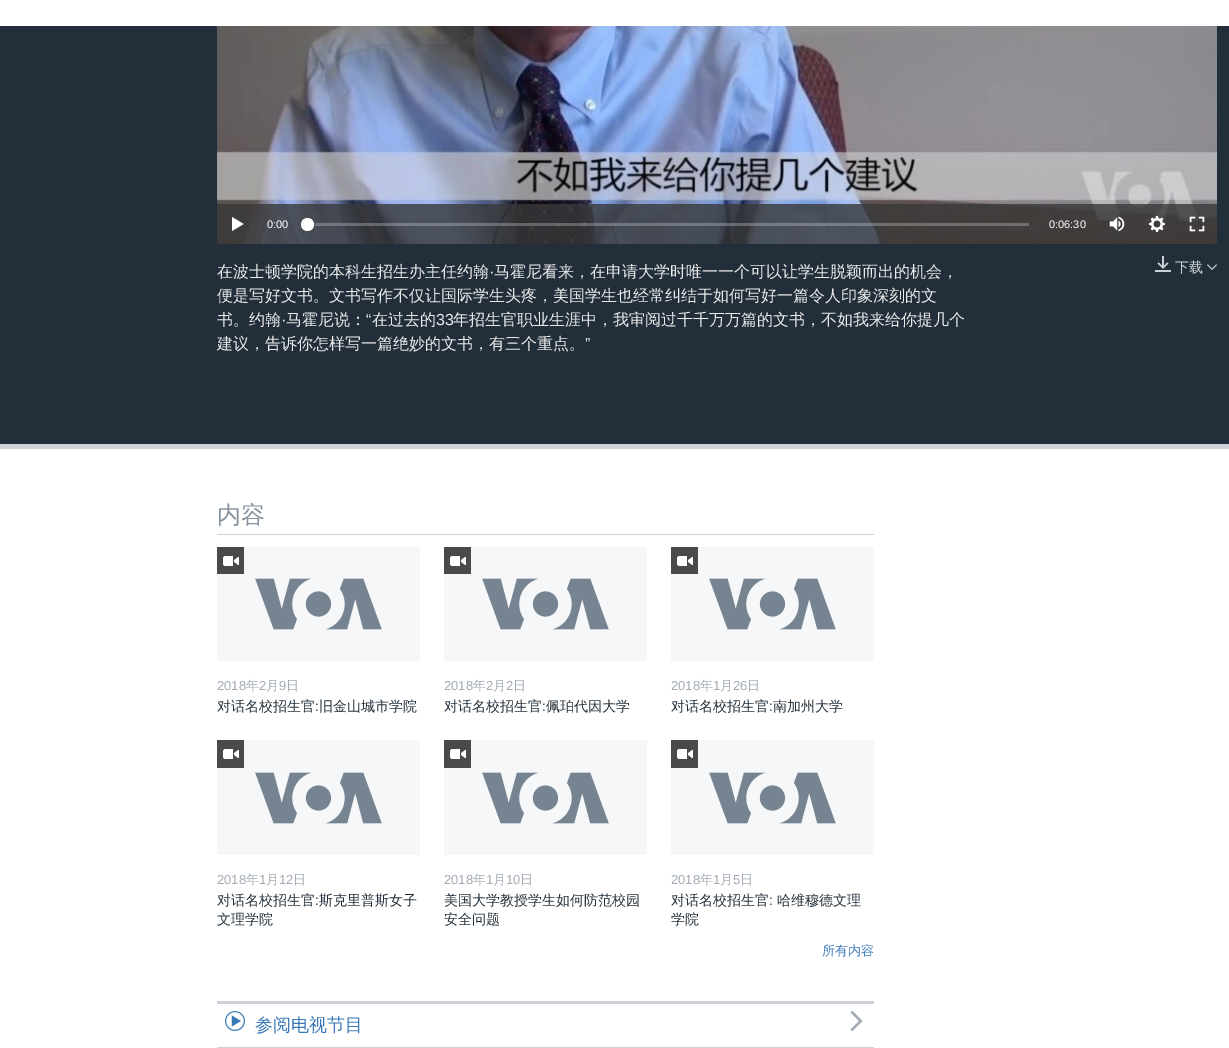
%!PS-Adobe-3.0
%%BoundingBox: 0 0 1229 1048
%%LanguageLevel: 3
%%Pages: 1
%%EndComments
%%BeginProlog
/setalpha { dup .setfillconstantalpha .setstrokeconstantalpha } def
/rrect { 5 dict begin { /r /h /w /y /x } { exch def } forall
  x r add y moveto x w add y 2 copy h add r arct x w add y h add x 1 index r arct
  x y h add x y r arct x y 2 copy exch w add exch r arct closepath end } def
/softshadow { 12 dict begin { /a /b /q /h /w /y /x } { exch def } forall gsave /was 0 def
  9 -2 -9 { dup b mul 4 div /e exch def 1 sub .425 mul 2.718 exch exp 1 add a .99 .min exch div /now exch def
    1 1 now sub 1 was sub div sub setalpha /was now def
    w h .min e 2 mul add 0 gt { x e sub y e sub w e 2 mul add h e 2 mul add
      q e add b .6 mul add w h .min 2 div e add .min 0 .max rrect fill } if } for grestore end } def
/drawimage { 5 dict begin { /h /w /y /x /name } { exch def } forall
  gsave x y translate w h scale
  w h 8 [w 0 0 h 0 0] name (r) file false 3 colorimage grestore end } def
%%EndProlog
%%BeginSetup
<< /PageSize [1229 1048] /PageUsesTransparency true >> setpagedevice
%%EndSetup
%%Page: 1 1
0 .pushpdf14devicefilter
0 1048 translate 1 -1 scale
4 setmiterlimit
1 setgray
0 0 1229 1048 rectfill
0.133 0.184 0.227 setrgbcolor
0 26 1229 418 rectfill
0.796 0.82 0.839 setrgbcolor
0 444 1229 5 rectfill
(images/1.raw) 217 26 1000 218 drawimage
0.8 setalpha
0.22 setgray
217 204 1000 40 rectfill
1 setalpha
1 setgray
newpath 232 231 moveto 243.5 224 lineto 232 217 lineto closepath fill
0.25 setalpha
308 223 721 3 rectfill
1 setalpha
0.255 0.255 0.267 setrgbcolor
301 218 13 13 6.5 1.5 1 softshadow
1 setgray
newpath 307.5 224.5 6.5 0 360 arc closepath fill
(images/2.raw) 1109 216 16 16 drawimage
(images/3.raw) 1149 216 16 16 drawimage
(images/4.raw) 1189 216 16 16 drawimage
(images/5.raw) 1155 256 16 16 drawimage
(images/6.raw) 1207 264 10 6 drawimage
0.796 0.82 0.839 setrgbcolor
217 534 657 1 rectfill
0.965 0.969 0.973 setrgbcolor
217 547 203 114 rectfill
(images/7.raw) 255 578 127 52 drawimage
0.29 setgray
217 547 27 27 rectfill
(images/8.raw) 223 556 16 10 drawimage
0.965 0.969 0.973 setrgbcolor
444 547 203 114 rectfill
(images/7.raw) 482 578 127 52 drawimage
0.29 setgray
444 547 27 27 rectfill
(images/8.raw) 450 556 16 10 drawimage
0.965 0.969 0.973 setrgbcolor
671 547 203 114 rectfill
(images/7.raw) 709 578 127 52 drawimage
0.29 setgray
671 547 27 27 rectfill
(images/8.raw) 677 556 16 10 drawimage
0.965 0.969 0.973 setrgbcolor
217 740 203 115 rectfill
(images/7.raw) 255 772 127 52 drawimage
0.29 setgray
217 740 27 28 rectfill
(images/8.raw) 223 749 16 10 drawimage
0.965 0.969 0.973 setrgbcolor
444 740 203 115 rectfill
(images/7.raw) 482 772 127 52 drawimage
0.29 setgray
444 740 27 28 rectfill
(images/8.raw) 450 749 16 10 drawimage
0.965 0.969 0.973 setrgbcolor
671 740 203 115 rectfill
(images/7.raw) 709 772 127 52 drawimage
0.29 setgray
671 740 27 28 rectfill
(images/8.raw) 677 749 16 10 drawimage
0.796 0.82 0.839 setrgbcolor
217 1001 657 3 rectfill
217 1047 657 1 rectfill
(images/9.raw) 225 1011 20 20 drawimage
0.631 0.667 0.706 setrgbcolor
newpath 852.5 1031 moveto 862.5 1021 lineto 852.5 1011 lineto 850.5 1012.5 lineto 859 1021 lineto 850.5 1029.5 lineto closepath fill
/LiberationSans-Regular [11 0 0 -11 0 0] selectfont
1 setgray
267 228 moveto (0:00) show
1049 228 moveto (0:06:30) show
/WenQuanYiZenHei-Medium [16 0 0 -16 0 0] selectfont
0.922 setgray
217 277 moveto (在波士顿学院的本科生招生办主任约翰) show
/LiberationSans-Regular [16 0 0 -16 0 0] selectfont
489 277 moveto (·) show
/WenQuanYiZenHei-Medium [16 0 0 -16 0 0] selectfont
494 277 moveto (马霍尼看来，在申请大学时唯一一个可以让学生脱颖而出的机会，) show
217 301 moveto (便是写好文书。文书写作不仅让国际学生头疼，美国学生也经常纠结于如何写好一篇令人印象深刻的文) show
217 325 moveto (书。约翰) show
286 325 moveto (马霍尼说：) show
/LiberationSans-Regular [16 0 0 -16 0 0] selectfont
366 325 moveto (“) show
/WenQuanYiZenHei-Medium [16 0 0 -16 0 0] selectfont
372 325 moveto (在过去的) show
/LiberationSans-Regular [16 0 0 -16 0 0] selectfont
436 325 moveto (33) show
/WenQuanYiZenHei-Medium [16 0 0 -16 0 0] selectfont
453 325 moveto (年招生官职业生涯中，我审阅过千千万万篇的文书，不如我来给你提几个) show
/LiberationSans-Regular [16 0 0 -16 0 0] selectfont
281 325 moveto (·) show
/WenQuanYiZenHei-Medium [16 0 0 -16 0 0] selectfont
217 349 moveto (建议，告诉你怎样写一篇绝妙的文书，有三个重点。) show
/LiberationSans-Regular [16 0 0 -16 0 0] selectfont
585 349 moveto (”) show
/WenQuanYiZenHei-Medium [14 0 0 -14 0 0] selectfont
0.796 0.82 0.839 setrgbcolor
1175 272 moveto (下载) show
/WenQuanYiZenHei-Medium [24 0 0 -24 0 0] selectfont
0.518 0.569 0.616 setrgbcolor
217 523 moveto (内容) show
/LiberationSans-Regular [13 0 0 -13 0 0] selectfont
0.631 0.667 0.706 setrgbcolor
217 690 moveto (2018) show
/WenQuanYiZenHei-Medium [13 0 0 -13 0 0] selectfont
246 690 moveto (年) show
/LiberationSans-Regular [13 0 0 -13 0 0] selectfont
259 690 moveto (2) show
/WenQuanYiZenHei-Medium [13 0 0 -13 0 0] selectfont
266 690 moveto (月) show
/LiberationSans-Regular [13 0 0 -13 0 0] selectfont
279 690 moveto (9) show
/WenQuanYiZenHei-Medium [13 0 0 -13 0 0] selectfont
286 690 moveto (日) show
/WenQuanYiZenHei-Medium [14 0 0 -14 0 0] selectfont
0.133 0.184 0.227 setrgbcolor
217 711 moveto (对话名校招生官) show
/LiberationSans-Regular [14 0 0 -14 0 0] selectfont
315 711 moveto (:) show
/WenQuanYiZenHei-Medium [14 0 0 -14 0 0] selectfont
319 711 moveto (旧金山城市学院) show
/LiberationSans-Regular [13 0 0 -13 0 0] selectfont
0.631 0.667 0.706 setrgbcolor
444 690 moveto (2018) show
/WenQuanYiZenHei-Medium [13 0 0 -13 0 0] selectfont
473 690 moveto (年) show
/LiberationSans-Regular [13 0 0 -13 0 0] selectfont
486 690 moveto (2) show
/WenQuanYiZenHei-Medium [13 0 0 -13 0 0] selectfont
493 690 moveto (月) show
/LiberationSans-Regular [13 0 0 -13 0 0] selectfont
506 690 moveto (2) show
/WenQuanYiZenHei-Medium [13 0 0 -13 0 0] selectfont
513 690 moveto (日) show
/WenQuanYiZenHei-Medium [14 0 0 -14 0 0] selectfont
0.133 0.184 0.227 setrgbcolor
444 711 moveto (对话名校招生官) show
/LiberationSans-Regular [14 0 0 -14 0 0] selectfont
542 711 moveto (:) show
/WenQuanYiZenHei-Medium [14 0 0 -14 0 0] selectfont
546 711 moveto (佩珀代因大学) show
/LiberationSans-Regular [13 0 0 -13 0 0] selectfont
0.631 0.667 0.706 setrgbcolor
671 690 moveto (2018) show
/WenQuanYiZenHei-Medium [13 0 0 -13 0 0] selectfont
700 690 moveto (年) show
/LiberationSans-Regular [13 0 0 -13 0 0] selectfont
713 690 moveto (1) show
/WenQuanYiZenHei-Medium [13 0 0 -13 0 0] selectfont
720 690 moveto (月) show
/LiberationSans-Regular [13 0 0 -13 0 0] selectfont
733 690 moveto (26) show
/WenQuanYiZenHei-Medium [13 0 0 -13 0 0] selectfont
747 690 moveto (日) show
/WenQuanYiZenHei-Medium [14 0 0 -14 0 0] selectfont
0.133 0.184 0.227 setrgbcolor
671 711 moveto (对话名校招生官) show
/LiberationSans-Regular [14 0 0 -14 0 0] selectfont
769 711 moveto (:) show
/WenQuanYiZenHei-Medium [14 0 0 -14 0 0] selectfont
773 711 moveto (南加州大学) show
/LiberationSans-Regular [13 0 0 -13 0 0] selectfont
0.631 0.667 0.706 setrgbcolor
217 884 moveto (2018) show
/WenQuanYiZenHei-Medium [13 0 0 -13 0 0] selectfont
246 884 moveto (年) show
/LiberationSans-Regular [13 0 0 -13 0 0] selectfont
259 884 moveto (1) show
/WenQuanYiZenHei-Medium [13 0 0 -13 0 0] selectfont
266 884 moveto (月) show
/LiberationSans-Regular [13 0 0 -13 0 0] selectfont
279 884 moveto (12) show
/WenQuanYiZenHei-Medium [13 0 0 -13 0 0] selectfont
293 884 moveto (日) show
/WenQuanYiZenHei-Medium [14 0 0 -14 0 0] selectfont
0.133 0.184 0.227 setrgbcolor
217 905 moveto (对话名校招生官) show
/LiberationSans-Regular [14 0 0 -14 0 0] selectfont
315 905 moveto (:) show
/WenQuanYiZenHei-Medium [14 0 0 -14 0 0] selectfont
319 905 moveto (斯克里普斯女子) show
217 924 moveto (文理学院) show
/LiberationSans-Regular [13 0 0 -13 0 0] selectfont
0.631 0.667 0.706 setrgbcolor
444 884 moveto (2018) show
/WenQuanYiZenHei-Medium [13 0 0 -13 0 0] selectfont
473 884 moveto (年) show
/LiberationSans-Regular [13 0 0 -13 0 0] selectfont
486 884 moveto (1) show
/WenQuanYiZenHei-Medium [13 0 0 -13 0 0] selectfont
493 884 moveto (月) show
/LiberationSans-Regular [13 0 0 -13 0 0] selectfont
506 884 moveto (10) show
/WenQuanYiZenHei-Medium [13 0 0 -13 0 0] selectfont
520 884 moveto (日) show
/WenQuanYiZenHei-Medium [14 0 0 -14 0 0] selectfont
0.133 0.184 0.227 setrgbcolor
444 905 moveto (美国大学教授学生如何防范校园) show
444 924 moveto (安全问题) show
/LiberationSans-Regular [13 0 0 -13 0 0] selectfont
0.631 0.667 0.706 setrgbcolor
671 884 moveto (2018) show
/WenQuanYiZenHei-Medium [13 0 0 -13 0 0] selectfont
700 884 moveto (年) show
/LiberationSans-Regular [13 0 0 -13 0 0] selectfont
713 884 moveto (1) show
/WenQuanYiZenHei-Medium [13 0 0 -13 0 0] selectfont
720 884 moveto (月) show
/LiberationSans-Regular [13 0 0 -13 0 0] selectfont
733 884 moveto (5) show
/WenQuanYiZenHei-Medium [13 0 0 -13 0 0] selectfont
740 884 moveto (日) show
/WenQuanYiZenHei-Medium [14 0 0 -14 0 0] selectfont
0.133 0.184 0.227 setrgbcolor
671 905 moveto (对话名校招生官) show
/LiberationSans-Regular [14 0 0 -14 0 0] selectfont
769 905 moveto (:) show
/WenQuanYiZenHei-Medium [14 0 0 -14 0 0] selectfont
777 905 moveto (哈维穆德文理) show
671 924 moveto (学院) show
/WenQuanYiZenHei-Medium [13 0 0 -13 0 0] selectfont
0.227 0.475 0.718 setrgbcolor
822 955 moveto (所有内容) show
/WenQuanYiZenHei-Medium [18 0 0 -18 0 0] selectfont
255 1031 moveto (参阅电视节目) show
.poppdf14devicefilter showpage
%%EOF
